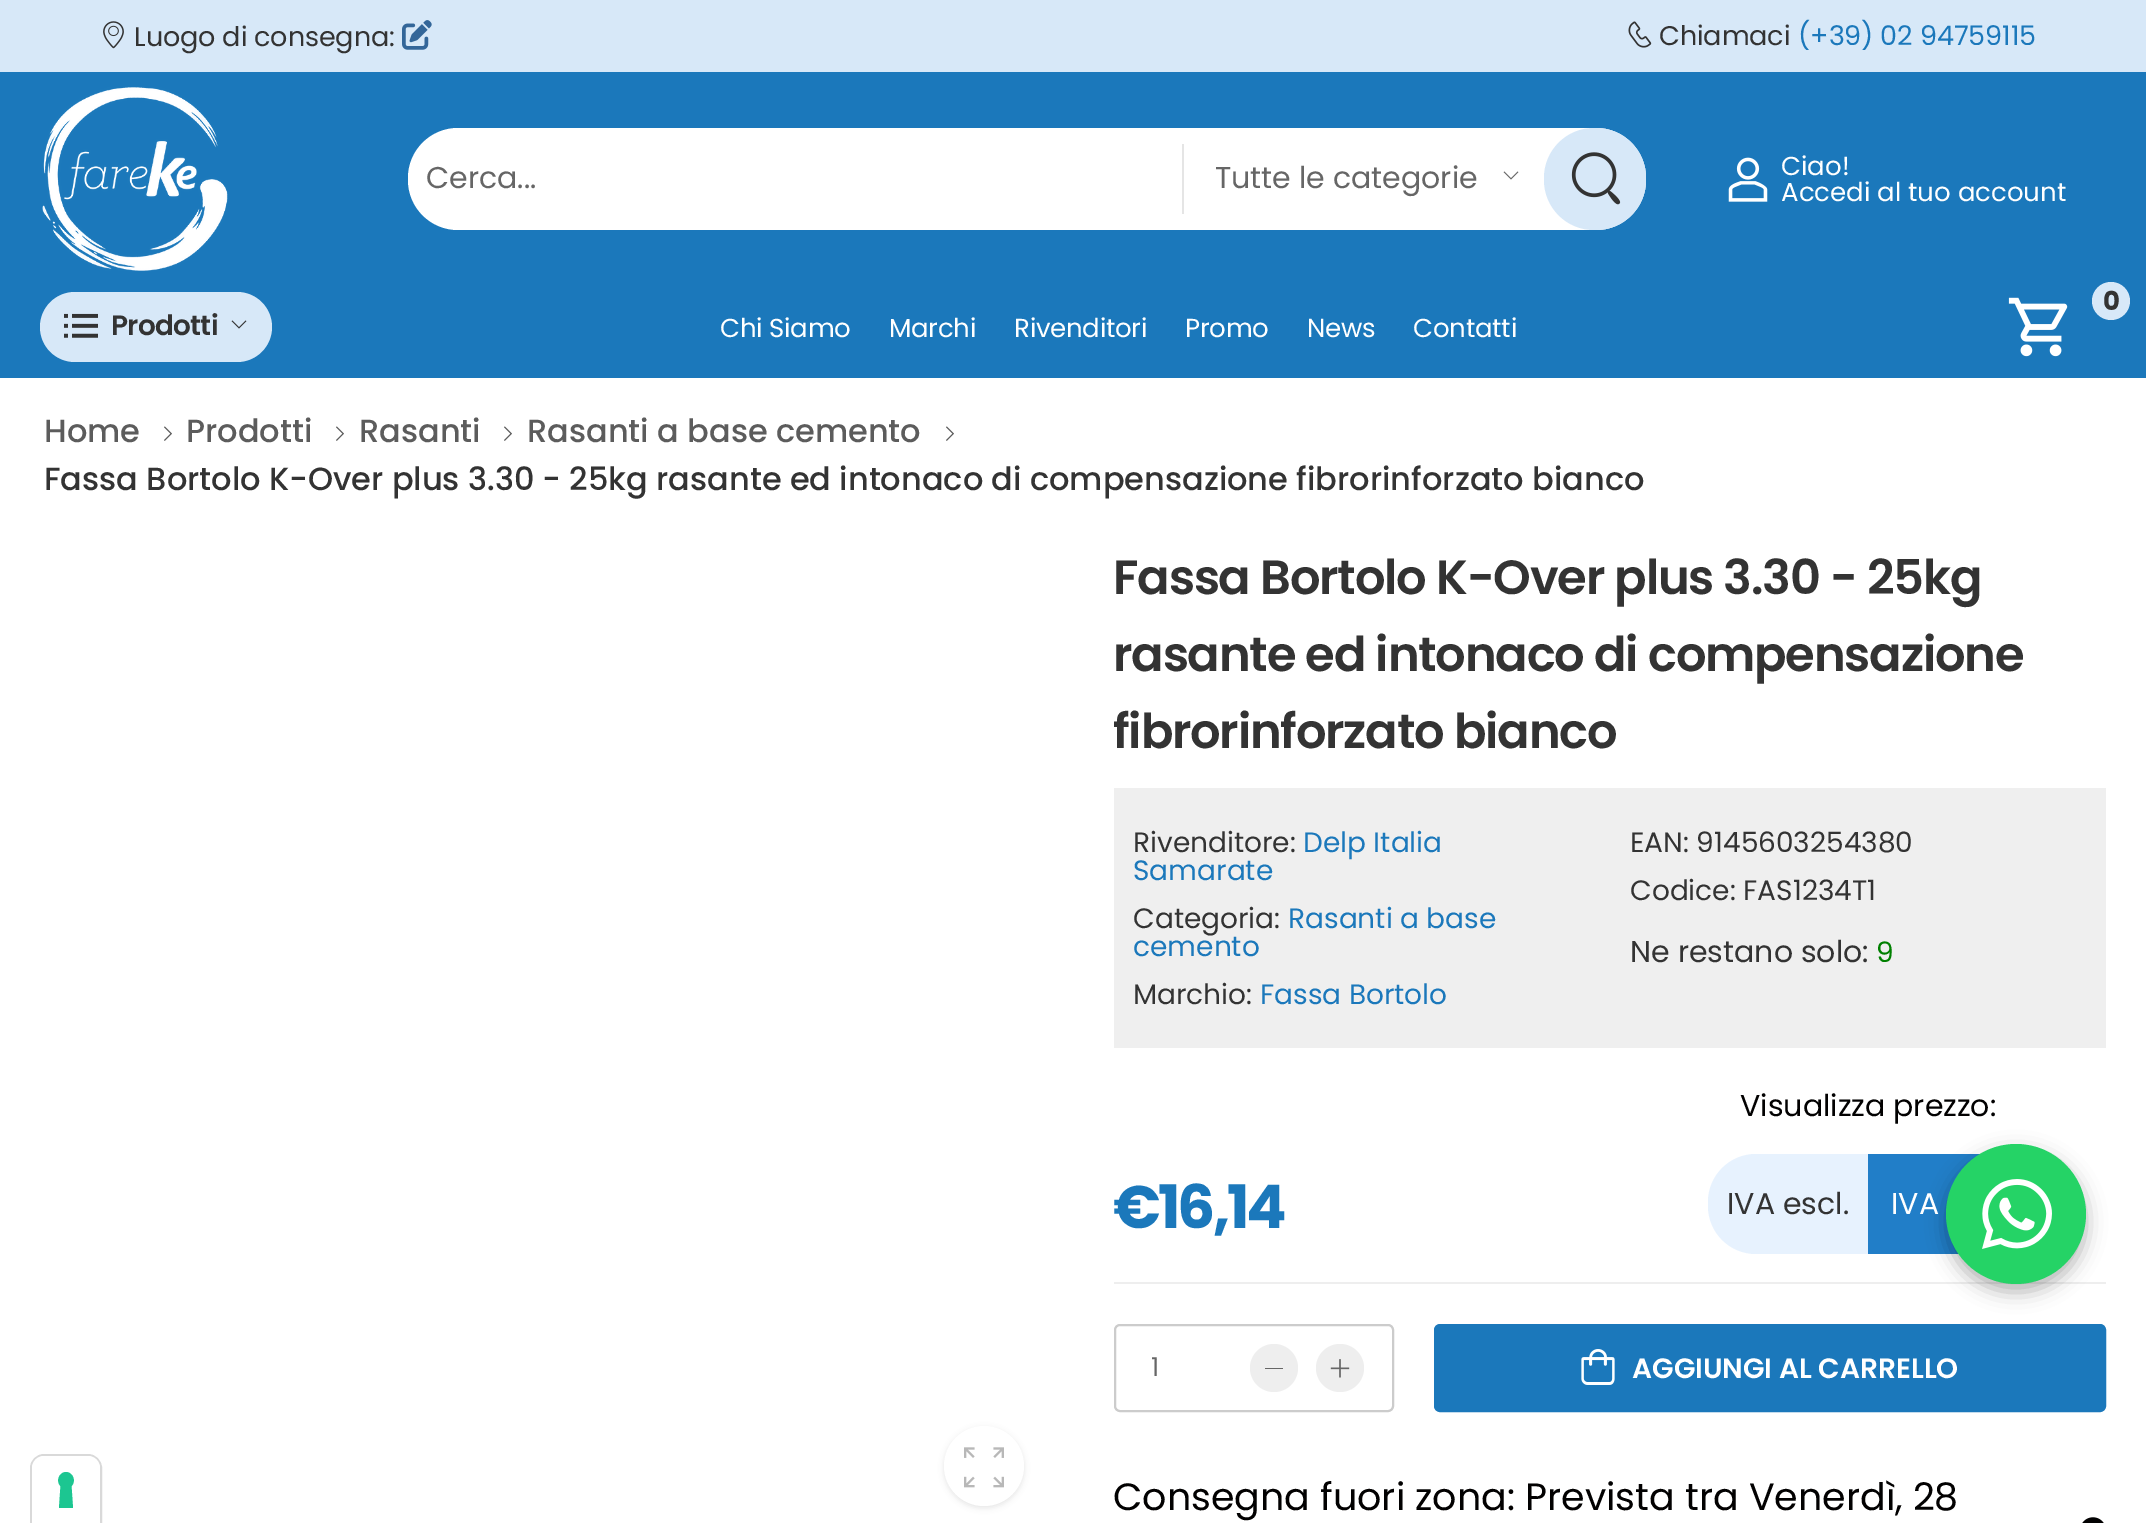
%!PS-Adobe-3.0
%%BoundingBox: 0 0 2146 1523
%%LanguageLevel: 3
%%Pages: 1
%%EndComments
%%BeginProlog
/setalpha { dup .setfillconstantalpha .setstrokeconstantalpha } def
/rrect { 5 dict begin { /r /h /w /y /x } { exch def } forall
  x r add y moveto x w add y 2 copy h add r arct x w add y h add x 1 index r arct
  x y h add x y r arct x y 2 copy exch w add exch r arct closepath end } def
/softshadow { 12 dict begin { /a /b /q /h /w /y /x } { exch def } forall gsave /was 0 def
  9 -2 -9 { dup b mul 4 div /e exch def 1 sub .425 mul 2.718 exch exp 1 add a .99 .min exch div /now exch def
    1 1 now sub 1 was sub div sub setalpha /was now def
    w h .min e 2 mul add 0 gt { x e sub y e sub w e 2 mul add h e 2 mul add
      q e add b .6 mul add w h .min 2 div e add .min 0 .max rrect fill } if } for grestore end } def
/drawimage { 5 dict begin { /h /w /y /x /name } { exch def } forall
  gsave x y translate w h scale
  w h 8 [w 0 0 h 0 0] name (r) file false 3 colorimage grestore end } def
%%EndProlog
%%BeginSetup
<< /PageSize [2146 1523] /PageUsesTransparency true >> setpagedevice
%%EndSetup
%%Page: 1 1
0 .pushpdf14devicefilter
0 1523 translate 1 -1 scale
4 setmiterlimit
1 setgray
0 0 2146 1523 rectfill
0.843 0.91 0.973 setrgbcolor
0 0 2146 72 rectfill
(images/1.raw) 103 21 21 28 drawimage
(images/2.raw) 402 20 30 30 drawimage
(images/3.raw) 1628 21 24 27 drawimage
0.106 0.471 0.733 setrgbcolor
0 72 2146 306 rectfill
(images/4.raw) 42 87 186 184 drawimage
1 setgray
408 128 1238 102 50 rrect fill
0.898 setgray
1182 144 2 70 rectfill
(images/5.raw) 1503 171 16 9 drawimage
0.843 0.91 0.973 setrgbcolor
1544 128 102 102 50 rrect fill
(images/6.raw) 1571 152 50 53 drawimage
(images/7.raw) 1728 157 40 45 drawimage
(images/8.raw) 2008 297 60 60 drawimage
newpath 2111 301 19 0 360 arc closepath fill
40 292 232 70 35 rrect fill
(images/9.raw) 64 313 34 25 drawimage
(images/10.raw) 231 320 16 9 drawimage
(images/11.raw) 164 426 8 15 drawimage
(images/11.raw) 336 426 8 15 drawimage
(images/11.raw) 504 426 8 15 drawimage
(images/11.raw) 946 426 8 15 drawimage
0.302 setgray
944 1428 80 80 40 3 0.15 softshadow
1 setgray
newpath 984 1466 40 0 360 arc closepath fill
(images/12.raw) 964 1447 40 41 drawimage
0.937 setgray
1114 788 992 260 rectfill
0.906 0.949 0.996 setrgbcolor
newpath 1756 1154 moveto 1868 1154 lineto 1868 1254 lineto 1756 1254 lineto 1729.5 1254 1708 1232.5 1708 1206 curveto 1708 1202 lineto 1708 1175.5 1729.5 1154 1756 1154 curveto closepath fill
0.129 0.494 0.784 setrgbcolor
1868 1154 112 100 rectfill
0.933 setgray
1114 1282 992 2 rectfill
0.8 setgray
2 setlinewidth
1115 1325 278 86 5 rrect stroke
0.933 setgray
newpath 1274 1368 24 0 360 arc closepath fill
0.4 setgray
1265 1368 18 1 rectfill
0.933 setgray
newpath 1340 1368 24 0 360 arc closepath fill
(images/13.raw) 1330 1359 20 19 drawimage
0.106 0.471 0.733 setrgbcolor
1436 1326 668 84 4 rrect gsave fill grestore
4 setlinewidth
stroke
(images/14.raw) 1581 1349 34 36 drawimage
(images/15.raw) 2082 1517 22 6 drawimage
0 setgray
1946 1152 140 140 70 10 0.3 softshadow
0.145 0.827 0.4 setrgbcolor
newpath 2016 1214 70 0 360 arc closepath fill
(images/16.raw) 1982 1179 70 70 drawimage
0.851 setgray
2 setlinewidth
newpath 44 1455 moveto 88 1455 lineto 95 1455 101 1461 101 1468 curveto 101 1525 lineto 31 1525 lineto 31 1468 lineto 31 1461 37 1455 44 1455 curveto closepath stroke
1 setgray
newpath 44 1456 moveto 88 1456 lineto 94.5 1456 100 1461.5 100 1468 curveto 100 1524 lineto 32 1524 lineto 32 1468 lineto 32 1461.5 37.5 1456 44 1456 curveto closepath fill
0.11 0.776 0.569 setrgbcolor
newpath 66 1472 moveto 73 1472 76.5 1481.5 71.5 1486 curveto 73 1508 lineto 59 1508 lineto 60.5 1486 lineto 55.5 1481.5 59 1472 66 1472 curveto closepath eofill
/Poppins-Regular [27 0 0 -27 0 0] selectfont
0.2 setgray
134 46 moveto -0.1 0 (Luogo di consegna:) ashow
1659 45 moveto -0.1 0 (Chiamaci) ashow
0.106 0.471 0.733 setrgbcolor
1798 45 moveto -0.1 0 (\(+39\) 02 94759115) ashow
/Poppins-Regular [30 0 0 -30 0 0] selectfont
0.4 setgray
426 188 moveto (Cerca...) show
1215 188 moveto (Tutte le categorie) show
/Poppins-Regular [26 0 0 -26 0 0] selectfont
1 setgray
1781 175 moveto (Ciao!) show
1781 201 moveto (Accedi al tuo account) show
/Poppins-Bold [26 0 0 -26 0 0] selectfont
0.2 setgray
2103 310 moveto (0) show
/Poppins-SemiBold [28 0 0 -28 0 0] selectfont
111 335 moveto -0.75 0 (Prodotti) ashow
/Poppins-Regular [26 0 0 -26 0 0] selectfont
1 setgray
720 337 moveto -0.25 0 (Chi Siamo) ashow
889 337 moveto -0.25 0 (Marchi) ashow
1014 337 moveto -0.25 0 (Rivenditori) ashow
1185 337 moveto -0.25 0 (Promo) ashow
1307 337 moveto -0.25 0 (News) ashow
1413 337 moveto -0.25 0 (Contatti) ashow
/Poppins-Medium [32 0 0 -32 0 0] selectfont
0.361 setgray
44 442 moveto (Home) show
186 442 moveto (Prodotti) show
359 442 moveto (Rasanti) show
527 442 moveto (Rasanti a base cemento) show
0.2 setgray
44 490 moveto (Fassa Bortolo K-Over plus 3.30 - 25kg rasante ed intonaco di compensazione fibrorinforzato bianco) show
/Poppins-SemiBold [48 0 0 -48 0 0] selectfont
1113 594 moveto -1.2 0 (Fassa Bortolo K-Over plus 3.30 - 25kg) ashow
1113 671 moveto -1.2 0 (rasante ed intonaco di compensazione) ashow
1113 748 moveto -1.2 0 (fibrorinforzato bianco) ashow
/Poppins-Regular [28 0 0 -28 0 0] selectfont
1133 852 moveto (Rivenditore:) show
0.106 0.471 0.733 setrgbcolor
1303 852 moveto (Delp Italia) show
1133 880 moveto (Samarate) show
0.2 setgray
1133 928 moveto (Categoria:) show
0.106 0.471 0.733 setrgbcolor
1288 928 moveto (Rasanti a base) show
1133 956 moveto (cemento) show
0.2 setgray
1133 1004 moveto (Marchio:) show
0.106 0.471 0.733 setrgbcolor
1260 1004 moveto (Fassa Bortolo) show
0.2 setgray
1630 852 moveto (EAN: 9145603254380) show
1630 900 moveto (Codice: FAS1234T1) show
/Poppins-Regular [30 0 0 -30 0 0] selectfont
1630 962 moveto (Ne restano solo:) show
/Poppins-Regular [28 0 0 -28 0 0] selectfont
0 0.502 0 setrgbcolor
1876 962 moveto (9) show
/Poppins-Bold [60 0 0 -60 0 0] selectfont
0.106 0.471 0.733 setrgbcolor
1113 1228 moveto -3 0 (€16,14) ashow
/Poppins-Regular [30 0 0 -30 0 0] selectfont
0.008 0.004 0.004 setrgbcolor
1740 1116 moveto (Visualizza prezzo:) show
0.2 setgray
1727 1214 moveto (IVA escl.) show
1 setgray
1891 1214 moveto (IVA) show
/Poppins-Regular [26 0 0 -26 0 0] selectfont
0.4 setgray
1151 1376 moveto (1) show
/Poppins-SemiBold [28 0 0 -28 0 0] selectfont
1 setgray
1632 1378 moveto (AGGIUNGI AL CARRELLO) show
/Poppins-Regular [38 0 0 -38 0 0] selectfont
0.008 0.004 0.004 setrgbcolor
1113 1510 moveto (Consegna fuori zona: Prevista tra Venerdì, 28) show
.poppdf14devicefilter showpage
%%EOF
